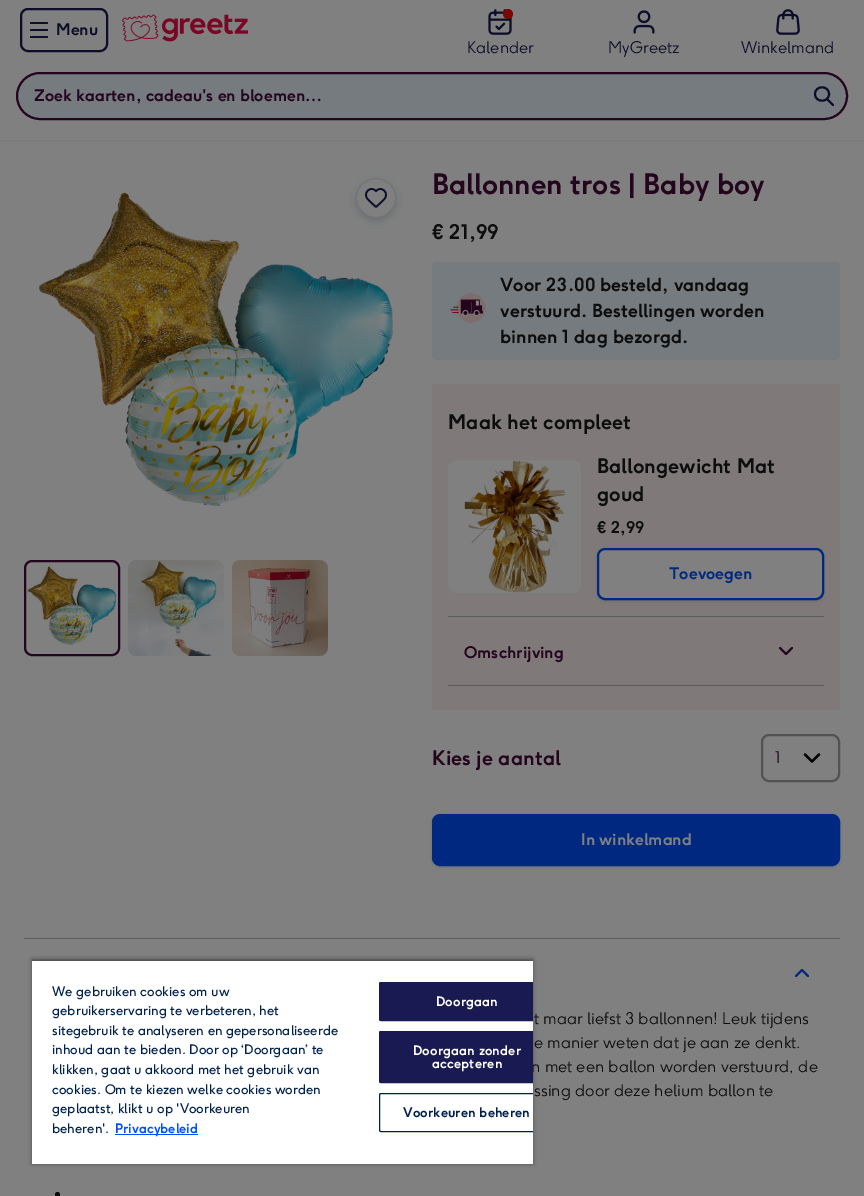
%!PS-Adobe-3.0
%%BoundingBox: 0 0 864 1196
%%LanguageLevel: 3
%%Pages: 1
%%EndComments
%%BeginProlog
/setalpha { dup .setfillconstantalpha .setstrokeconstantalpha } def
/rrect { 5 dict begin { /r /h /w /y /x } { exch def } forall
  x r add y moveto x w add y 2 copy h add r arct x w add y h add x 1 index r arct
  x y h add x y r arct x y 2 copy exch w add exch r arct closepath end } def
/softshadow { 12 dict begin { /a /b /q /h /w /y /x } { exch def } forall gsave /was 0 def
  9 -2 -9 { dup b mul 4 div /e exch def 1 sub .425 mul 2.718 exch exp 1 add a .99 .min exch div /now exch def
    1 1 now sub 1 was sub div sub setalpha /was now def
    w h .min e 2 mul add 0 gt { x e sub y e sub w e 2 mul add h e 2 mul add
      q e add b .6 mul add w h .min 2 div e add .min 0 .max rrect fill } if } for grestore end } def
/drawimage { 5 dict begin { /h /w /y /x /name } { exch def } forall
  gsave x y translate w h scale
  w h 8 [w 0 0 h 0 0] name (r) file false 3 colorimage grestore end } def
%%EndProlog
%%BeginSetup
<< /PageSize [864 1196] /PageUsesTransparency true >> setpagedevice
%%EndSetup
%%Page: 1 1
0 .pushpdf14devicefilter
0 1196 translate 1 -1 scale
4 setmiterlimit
0.502 setgray
0 0 864 1196 rectfill
0.486 0.486 0.49 setrgbcolor
0 140 864 2 rectfill
0.051 0.051 0.161 setrgbcolor
2 setlinewidth
21 9 86 42 7 rrect stroke
30 22 18 2 1 rrect fill
30 29 18 2 1 rrect fill
30 36 18 2 1 rrect fill
(images/1.raw) 122 14 126 28 drawimage
(images/2.raw) 488 9 24 26 drawimage
0.463 0.031 0 setrgbcolor
newpath 508 14 5 0 360 arc closepath fill
(images/3.raw) 633 10 22 24 drawimage
(images/4.raw) 776 9 24 26 drawimage
0.463 0.482 0.498 setrgbcolor
17 73 830 46 23 rrect gsave fill grestore
0.141 0.02 0.114 setrgbcolor
stroke
0.051 0.051 0.161 setrgbcolor
1 setlinecap
1 setlinejoin
newpath 833 105 moveto 827 99 lineto 829 94 moveto 829 103 815 103 815 94 curveto 815 85 829 85 829 94 curveto stroke
(images/6.raw) 38 192 355 314 drawimage
0 0.008 0.153 setrgbcolor
356 181 40 40 20 4 0.15 softshadow
0.502 setgray
newpath 376 198 19.5 0 360 arc closepath gsave fill grestore
0.455 setgray
1 setlinewidth
0 setlinecap
0 setlinejoin
stroke
(images/5.raw) 365 188 22 20 drawimage
(images/7.raw) 27 566 89 79 drawimage
0.141 0.02 0.114 setrgbcolor
2 setlinewidth
25 561 94 94 7 rrect stroke
(images/8.raw) 128 560 96 96 drawimage
(images/9.raw) 232 560 96 96 drawimage
0.463 0.482 0.498 setrgbcolor
432 262 408 98 4 rrect fill
(images/10.raw) 450 293 36 30 drawimage
0.498 0.475 0.478 setrgbcolor
432 384 408 326 rectfill
(images/11.raw) 448 460 133 133 drawimage
0 0.063 0.153 setrgbcolor
597 549 227 52 8 2 0.15 softshadow
0.502 setgray
598 549 225 50 7 rrect gsave fill grestore
0 0.157 0.502 setrgbcolor
stroke
0.365 setgray
448 616 376 1 rectfill
448 685 376 1 rectfill
0.141 0.02 0.114 setrgbcolor
1 setlinecap
1 setlinejoin
newpath 780 648 moveto 786 654 lineto 792 648 lineto stroke
0 setgray
2.3 setlinewidth
newpath 805 754.5 moveto 812 761.5 lineto 819 754.5 lineto stroke
0.322 setgray
2 setlinewidth
0 setlinecap
0 setlinejoin
762 735 77 46 7 rrect stroke
0 0.063 0.153 setrgbcolor
432 815 408 52 8 2 0.15 softshadow
0 0.157 0.502 setrgbcolor
433 815 406 50 7 rrect gsave fill grestore
stroke
0.365 setgray
24 938 816 1 rectfill
0 0.157 0.502 setrgbcolor
1 setlinecap
1 setlinejoin
newpath 808 976 moveto 802 970 lineto 796 976 lineto stroke
0.051 setgray
newpath 57.5 1194.5 2.5 0 360 arc closepath fill
0 setgray
32 959 501 205 0 2 0.35 softshadow
gsave
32 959 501 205 rectclip
32 961 501 203 0 2 0.2 softshadow
grestore
/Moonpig-Bold [16 0 0 -16 0 0] selectfont
0.051 0.051 0.161 setrgbcolor
56 35 moveto (Menu) show
/Moonpig-Light [16 0 0 -16 0 0] selectfont
467 53 moveto (Kalender) show
608 53 moveto (MyGreetz) show
741 53 moveto (Winkelmand) show
/Moonpig-Bold [16 0 0 -16 0 0] selectfont
0.141 0.02 0.114 setrgbcolor
34 101 moveto (Zoek kaarten, cadeau's en bloemen…) show
/Moonpig-Bold [28 0 0 -28 0 0] selectfont
432 194 moveto (Ballonnen tros | Baby boy) show
/Moonpig-Bold [20 0 0 -20 0 0] selectfont
0.051 setgray
432 239 moveto (€ 21,99) show
/Moonpig-Bold [18 0 0 -18 0 0] selectfont
500 291 moveto (Voor 23.00 besteld, vandaag) show
500 317 moveto (verstuurd. Bestellingen worden) show
500 343 moveto (binnen 1 dag bezorgd.) show
/Moonpig-Bold [20 0 0 -20 0 0] selectfont
448 429 moveto (Maak het compleet) show
597 473 moveto (Ballongewicht Mat) show
597 501 moveto (goud) show
/Moonpig-Bold [16 0 0 -16 0 0] selectfont
597 533 moveto (€ 2,99) show
0 0.157 0.502 setrgbcolor
669 579 moveto (Toevoegen) show
0.141 0.02 0.114 setrgbcolor
464 658 moveto (Omschrijving) show
/Moonpig-Bold [20 0 0 -20 0 0] selectfont
432 765 moveto (Kies je aantal) show
/Moonpig-Light [16 0 0 -16 0 0] selectfont
775 763 moveto (1) show
/Moonpig-Bold [16 0 0 -16 0 0] selectfont
0.502 setgray
581 845 moveto (In winkelmand) show
/Moonpig-Light [16 0 0 -16 0 0] selectfont
0.051 setgray
534 1024 moveto (t maar liefst 3 ballonnen! Leuk tijdens) show
534 1048 moveto (e manier weten dat je aan ze denkt.) show
531 1072 moveto (n met een ballon worden verstuurd, de) show
534 1096 moveto (ssing door deze helium ballon te) show
1 setgray
32 961 501 203 rectfill
/Moonpig-Regular [13 0 0 -13 0 0] selectfont
0 0.125 0.302 setrgbcolor
52 996 moveto (We gebruiken cookies om uw) show
52 1015 moveto (gebruikerservaring te verbeteren, het) show
52 1035 moveto (sitegebruik te analyseren en gepersonaliseerde) show
52 1054 moveto (inhoud aan te bieden. Door op ‘Doorgaan’ te) show
52 1074 moveto (klikken, gaat u akkoord met het gebruik van) show
52 1094 moveto (cookies. Om te kiezen welke cookies worden) show
52 1113 moveto (geplaatst, klikt u op 'Voorkeuren) show
52 1133 moveto (beheren'.) show
0 0.314 1 setrgbcolor
115 1134 83 1 rectfill
/Moonpig-Bold [13 0 0 -13 0 0] selectfont
115 1133 moveto (Privacybeleid) show
0.098 0.102 0.318 setrgbcolor
newpath 381 982 moveto 533 982 lineto 533 1021 lineto 381 1021 lineto 380 1021 379 1020 379 1019 curveto 379 984 lineto 379 983 380 982 381 982 curveto closepath fill
gsave
32 959 501 205 rectclip
1 setlinewidth
0 setlinecap
0 setlinejoin
379.5 982.5 174 38 1.5 rrect stroke
grestore
1 setgray
436 1006 moveto 0.1 0 (Doorgaan) ashow
0.098 0.102 0.318 setrgbcolor
newpath 381 1031 moveto 533 1031 lineto 533 1083 lineto 381 1083 lineto 380 1083 379 1082 379 1081 curveto 379 1033 lineto 379 1032 380 1031 381 1031 curveto closepath fill
gsave
32 959 501 205 rectclip
1 setlinewidth
0 setlinecap
0 setlinejoin
379.5 1031.5 174 51 1.5 rrect stroke
grestore
1 setgray
413 1055 moveto 0.1 0 (Doorgaan zonder) ashow
432 1068 moveto 0.1 0 (accepteren) ashow
gsave
32 959 501 205 rectclip
0 0.125 0.302 setrgbcolor
1 setlinewidth
0 setlinecap
0 setlinejoin
379.5 1093.5 174 38 1.5 rrect stroke
grestore
0 0.125 0.302 setrgbcolor
403 1117 moveto 0.1 0 (Voorkeuren beheren) ashow
.poppdf14devicefilter showpage
%%EOF
